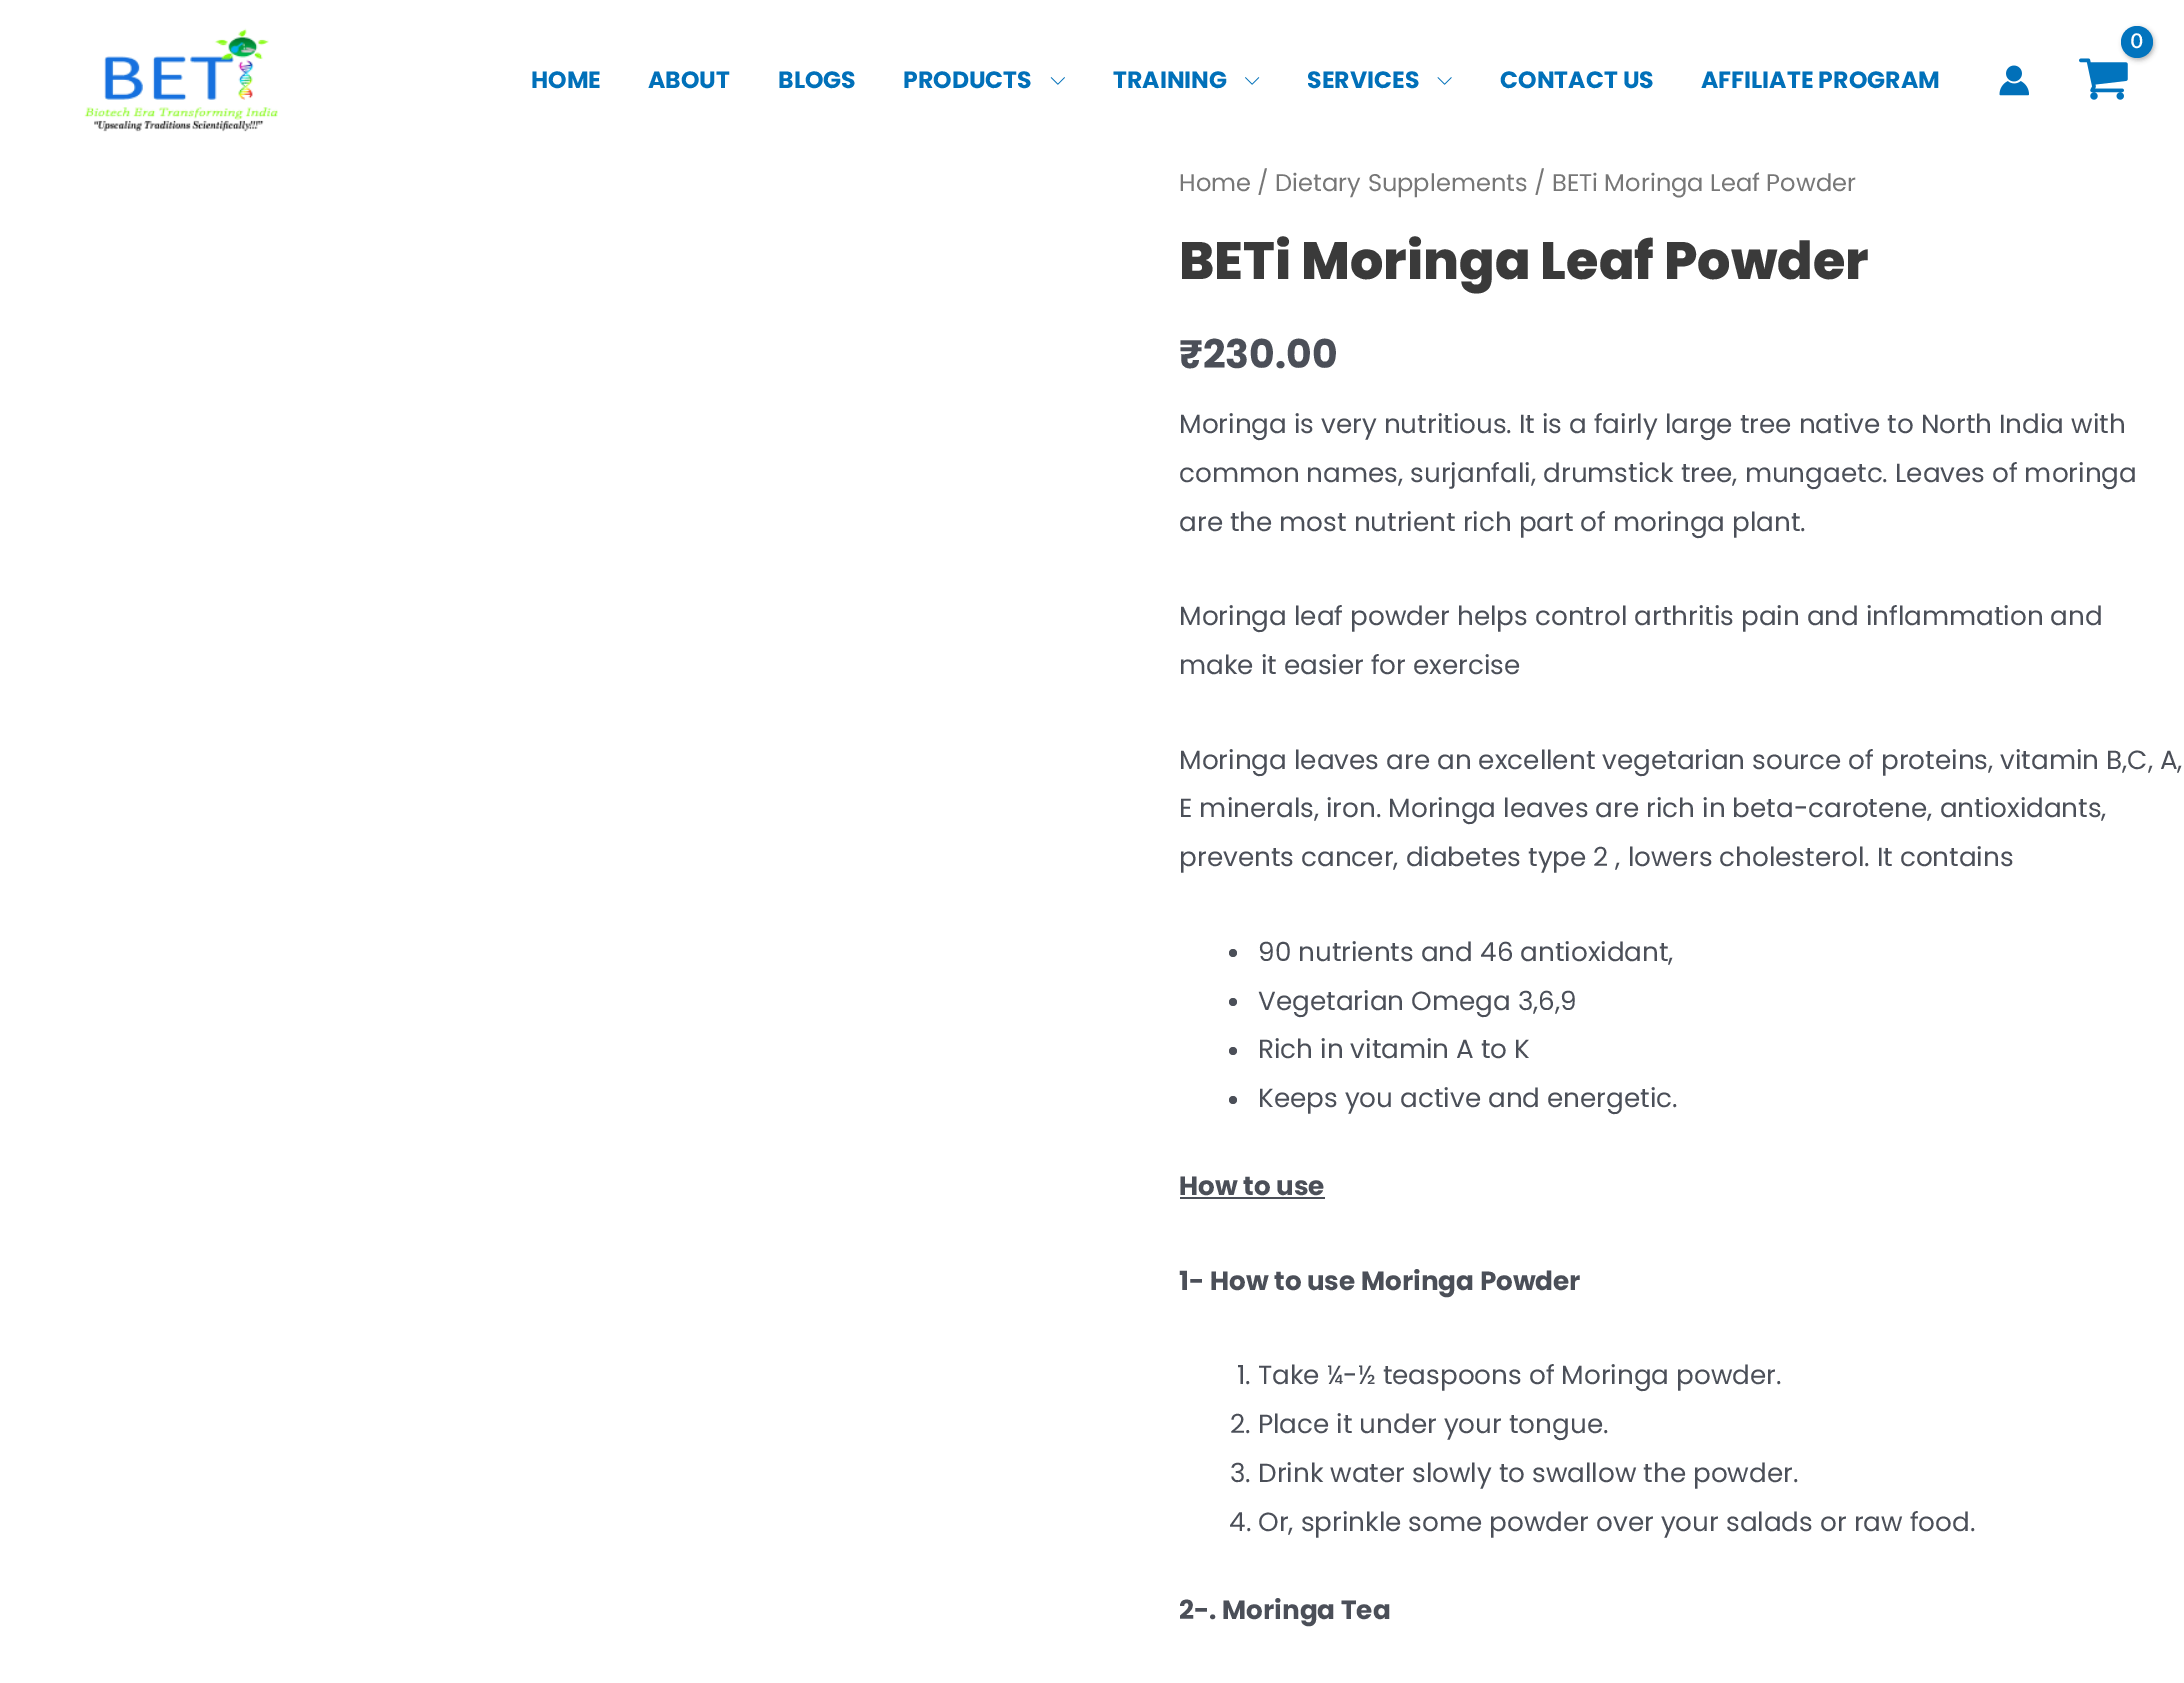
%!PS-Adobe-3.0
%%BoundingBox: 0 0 2184 1683
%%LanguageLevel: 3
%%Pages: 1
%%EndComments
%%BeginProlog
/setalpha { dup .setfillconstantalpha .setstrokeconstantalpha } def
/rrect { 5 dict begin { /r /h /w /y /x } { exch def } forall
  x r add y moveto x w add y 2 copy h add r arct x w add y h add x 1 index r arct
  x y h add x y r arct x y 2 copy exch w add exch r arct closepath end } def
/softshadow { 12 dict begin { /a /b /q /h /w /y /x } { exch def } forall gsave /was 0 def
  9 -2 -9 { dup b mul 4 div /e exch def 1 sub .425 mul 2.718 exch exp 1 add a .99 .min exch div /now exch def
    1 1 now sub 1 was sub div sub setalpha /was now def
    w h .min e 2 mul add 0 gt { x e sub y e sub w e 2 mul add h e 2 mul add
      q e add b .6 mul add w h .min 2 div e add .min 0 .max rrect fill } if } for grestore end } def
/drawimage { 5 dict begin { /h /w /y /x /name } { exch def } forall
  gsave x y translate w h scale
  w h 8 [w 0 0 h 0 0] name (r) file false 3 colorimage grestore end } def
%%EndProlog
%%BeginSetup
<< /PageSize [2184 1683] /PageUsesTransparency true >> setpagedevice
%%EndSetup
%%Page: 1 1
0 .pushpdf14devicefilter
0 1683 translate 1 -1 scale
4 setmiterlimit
1 setgray
0 0 2184 1683 rectfill
(images/1.raw) 84 28 194 104 drawimage
(images/2.raw) 2079 58 49 42 drawimage
0 setgray
2123 28 31 32 15.5 2.5 0.3 softshadow
0.008 0.455 0.745 setrgbcolor
newpath 2137 42 16 0 360 arc closepath fill
(images/3.raw) 1050 77 15 8 drawimage
(images/4.raw) 1245 77 15 8 drawimage
(images/5.raw) 1437 77 15 8 drawimage
(images/6.raw) 1999 65 30 31 drawimage
0.294 0.31 0.345 setrgbcolor
newpath 1233 953 4 0 360 arc closepath fill
newpath 1233 1002 4 0 360 arc closepath fill
newpath 1233 1051 4 0 360 arc closepath fill
newpath 1233 1100 4 0 360 arc closepath fill
1180 1197 145 2 rectfill
/LibreFranklin-Bold [19 0 0 -19 0 0] selectfont
1 setgray
2130 48 moveto -1 0 (0) ashow
/Poppins-Bold [23.6 0 0 -23.6 0 0] selectfont
0.004 0.439 0.725 setrgbcolor
531 88 moveto (HOME) show
648 88 moveto (ABOUT) show
778 88 moveto (BLOGS) show
903 88 moveto (PRODUCTS) show
1113 88 moveto (TRAINING) show
1307 88 moveto (SERVICES) show
1500 88 moveto (CONTACT US) show
1701 88 moveto (AFFILIATE PROGRAM) show
/Poppins-Regular [24.15 0 0 -24.15 0 0] selectfont
0.467 setgray
1179 191 moveto (Home / Dietary Supplements / BETi Moringa Leaf Powder) show
/Poppins-ExtraBold [52.5 0 0 -52.5 0 0] selectfont
0.227 setgray
1179 279 moveto (BETi Moringa Leaf Powder) show
/Poppins-Bold [39.5 0 0 -39.5 0 0] selectfont
0.294 0.31 0.345 setrgbcolor
1179 368 moveto (₹230.00) show
/Poppins-Regular [26.25 0 0 -26.25 0 0] selectfont
1179 433 moveto (Moringa is very nutritious. It is a fairly large tree native to North India with) show
1179 482 moveto (common names, surjanfali, drumstick tree, mungaetc. Leaves of moringa) show
1179 531 moveto (are the most nutrient rich part of moringa plant.) show
1179 625 moveto (Moringa leaf powder helps control arthritis pain and inflammation and) show
1179 674 moveto (make it easier for exercise) show
1179 769 moveto (Moringa leaves are an excellent vegetarian source of proteins, vitamin B,C, A,) show
1179 817 moveto (E minerals, iron. Moringa leaves are rich in beta-carotene, antioxidants,) show
1179 866 moveto (prevents cancer, diabetes type 2 , lowers cholesterol. It contains) show
1258 961 moveto (90 nutrients and 46 antioxidant,) show
1258 1010 moveto (Vegetarian Omega 3,6,9) show
1258 1058 moveto (Rich in vitamin A to K) show
1258 1107 moveto (Keeps you active and energetic.) show
/Poppins-Bold [26.25 0 0 -26.25 0 0] selectfont
1179 1195 moveto (How to use) show
1179 1290 moveto (1- How to use Moringa Powder) show
/Poppins-Regular [26.25 0 0 -26.25 0 0] selectfont
1237 1384 moveto (1. Take ¼-½ teaspoons of Moringa powder.) show
1230 1433 moveto (2. Place it under your tongue.) show
1230 1482 moveto (3. Drink water slowly to swallow the powder.) show
1229 1531 moveto (4. Or, sprinkle some powder over your salads or raw food.) show
/Poppins-Bold [26.25 0 0 -26.25 0 0] selectfont
1179 1619 moveto (2-. Moringa Tea) show
.poppdf14devicefilter showpage
%%EOF
